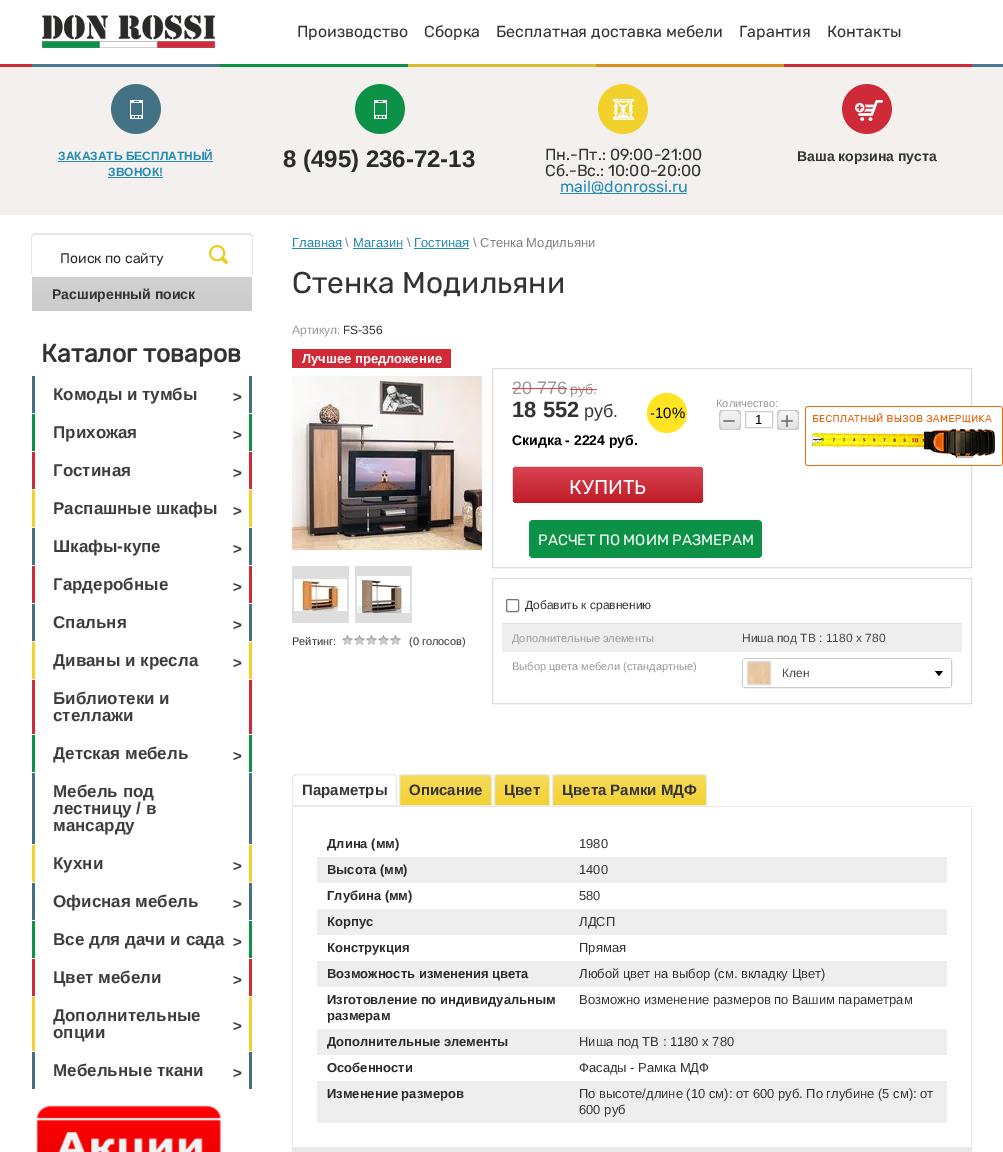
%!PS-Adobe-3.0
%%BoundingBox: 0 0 1003 1152
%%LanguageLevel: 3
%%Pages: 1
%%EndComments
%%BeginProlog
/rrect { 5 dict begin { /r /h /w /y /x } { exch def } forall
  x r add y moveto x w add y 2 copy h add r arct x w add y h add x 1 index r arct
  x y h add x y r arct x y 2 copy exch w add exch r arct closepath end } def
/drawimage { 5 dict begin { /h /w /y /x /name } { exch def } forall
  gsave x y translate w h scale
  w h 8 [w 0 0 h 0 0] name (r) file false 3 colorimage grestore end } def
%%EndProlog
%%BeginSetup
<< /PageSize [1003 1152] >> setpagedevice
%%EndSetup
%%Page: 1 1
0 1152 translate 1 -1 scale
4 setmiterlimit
1 setgray
0 0 1003 1152 rectfill
(images/1.raw) 42 15 173 33 drawimage
(images/2.raw) 0 64 1003 3 drawimage
0.953 0.941 0.929 setrgbcolor
0 67 1003 148 rectfill
(images/3.raw) 111 84 50 50 drawimage
0.141 0.545 0.714 setrgbcolor
58 161 155 1 rectfill
108 177 55 1 rectfill
(images/4.raw) 355 84 50 50 drawimage
(images/5.raw) 598 84 50 50 drawimage
560 193 127 1 rectfill
(images/6.raw) 842 84 50 50 drawimage
0.902 setgray
newpath 35 233 moveto 33 233 31 235 31 237 curveto 31 273 lineto 31 275 33 277 35 277 curveto 33 277 32 276 32 274 curveto 32 238 lineto 32 236 33 235 35 235 curveto 249 235 lineto 251 235 252 236 252 238 curveto 252 274 lineto 252 276 251 277 249 277 curveto 251 277 253 275 253 273 curveto 253 237 lineto 253 235 251 233 249 233 curveto closepath fill
(images/7.raw) 209 245 19 19 drawimage
gsave 32 277 220 34 3 rrect clip newpath
<< /ShadingType 2 /ColorSpace /DeviceRGB /Coords [329 277 329 311] /Extend [true true] /Function << /FunctionType 2 /Domain [0 1] /C0 [0.82 0.82 0.82] /C1 [0.8 0.8 0.8] /N 1 >> >> shfill grestore
0.263 0.443 0.518 setrgbcolor
249 376 3 37 rectfill
32 376 3 37 rectfill
0.047 0.573 0.275 setrgbcolor
249 414 3 37 rectfill
32 414 3 37 rectfill
0.812 0.165 0.216 setrgbcolor
249 452 3 37 rectfill
32 452 3 37 rectfill
0.953 0.82 0.176 setrgbcolor
249 490 3 37 rectfill
32 490 3 37 rectfill
0.263 0.443 0.518 setrgbcolor
249 528 3 37 rectfill
32 528 3 37 rectfill
0.812 0.165 0.216 setrgbcolor
249 566 3 37 rectfill
32 566 3 37 rectfill
0.263 0.443 0.518 setrgbcolor
249 604 3 37 rectfill
32 604 3 37 rectfill
0.953 0.82 0.176 setrgbcolor
249 642 3 37 rectfill
32 642 3 37 rectfill
0.812 0.165 0.216 setrgbcolor
249 680 3 54 rectfill
32 680 3 54 rectfill
0.047 0.573 0.275 setrgbcolor
249 735 3 37 rectfill
32 735 3 37 rectfill
0.263 0.443 0.518 setrgbcolor
249 773 3 71 rectfill
32 773 3 71 rectfill
0.953 0.82 0.176 setrgbcolor
249 845 3 37 rectfill
32 845 3 37 rectfill
0.263 0.443 0.518 setrgbcolor
249 883 3 37 rectfill
32 883 3 37 rectfill
0.047 0.573 0.275 setrgbcolor
249 921 3 37 rectfill
32 921 3 37 rectfill
0.812 0.165 0.216 setrgbcolor
249 959 3 37 rectfill
32 959 3 37 rectfill
0.953 0.82 0.176 setrgbcolor
249 997 3 54 rectfill
32 997 3 54 rectfill
0.263 0.443 0.518 setrgbcolor
249 1052 3 37 rectfill
32 1052 3 37 rectfill
(images/8.raw) 36 1105 185 47 drawimage
0.141 0.545 0.714 setrgbcolor
292 248 50 1 rectfill
353 248 50 1 rectfill
414 248 55 1 rectfill
0.812 0.165 0.216 setrgbcolor
292 349 159 19 rectfill
(images/9.raw) 292 376 190 174 drawimage
0.871 setgray
292 566 57 57 rectfill
(images/10.raw) 294 579 53 32 drawimage
355 566 57 57 rectfill
(images/11.raw) 357 576 53 37 drawimage
(images/12.raw) 342 635 59 10 drawimage
492.5 368.5 479 199 rectstroke
1 0.894 0.129 setrgbcolor
newpath 667 413 20 0 360 arc closepath fill
gsave 719 410 22 20 4 rrect clip newpath
<< /ShadingType 2 /ColorSpace /DeviceRGB /Coords [730 410 730 430] /Extend [true true] /Function << /FunctionType 2 /Domain [0 1] /C0 [0.973 0.973 0.973] /C1 [0.875 0.875 0.875] /N 1 >> >> shfill grestore
0.8 setgray
newpath 721 410.5 moveto 720 411.5 719 412.5 719 414 curveto 719 426 lineto 719 428 721 430 723 430 curveto 737 430 lineto 738.5 430 740 429 740.5 428 curveto 738 430 732.5 429 730 429 curveto 722.5 429 lineto 721.5 428 lineto 720.5 427 720 426 720 424.5 curveto 720 414 lineto 720 413 720.5 411.5 721 410.5 curveto closepath fill
newpath 722 411 moveto 725.5 411 736.5 410 738.5 412 curveto 740 414.5 lineto 740 416 740 424.5 740 427 curveto 740 428 739.5 429 739 429.5 curveto 740 429 741 427.5 741 426 curveto 741 414 lineto 741 412 739 410 737 410 curveto 723 410 lineto 721.5 410 720.5 410.5 719.5 411.5 curveto 720.5 411.5 721 411 722 411 curveto closepath fill
newpath 719.5 428.5 moveto 720.5 429.5 721.5 430 723 430 curveto 737 430 lineto 739 430 741 428 741 426 curveto 741 414 lineto 741 412.5 740 411 739 410.5 curveto 739.5 411 740 412 740 413 curveto 740 415.5 740 424 740 425.5 curveto 738.5 428 lineto 736.5 430 731 429 728 429 curveto 726 429 721.5 429.5 719.5 428.5 curveto closepath fill
newpath 724 411 moveto 727 411 738 410 740.5 412 curveto 740 411 738.5 410 737 410 curveto 723 410 lineto 721 410 719 412 719 414 curveto 719 426 lineto 719 427.5 720 428.5 721 429.5 curveto 719.5 427.5 719.5 415 721 413 curveto 721.5 411.5 722.5 411 724 411 curveto closepath fill
745.5 411.5 27 16 rectstroke
gsave 777 410 22 20 4 rrect clip newpath
<< /ShadingType 2 /ColorSpace /DeviceRGB /Coords [788 410 788 430] /Extend [true true] /Function << /FunctionType 2 /Domain [0 1] /C0 [0.973 0.973 0.973] /C1 [0.875 0.875 0.875] /N 1 >> >> shfill grestore
newpath 779 410.5 moveto 778 411.5 777 412.5 777 414 curveto 777 426 lineto 777 428 779 430 781 430 curveto 795 430 lineto 796.5 430 798 429 798.5 428 curveto 796 430 790.5 429 788 429 curveto 780.5 429 lineto 779.5 428 lineto 778.5 427 778 426 778 424.5 curveto 778 414 lineto 778 413 778.5 411.5 779 410.5 curveto closepath fill
newpath 780 411 moveto 783.5 411 794.5 410 796.5 412 curveto 798 414.5 lineto 798 416 798 424.5 798 427 curveto 798 428 797.5 429 797 429.5 curveto 798 429 799 427.5 799 426 curveto 799 414 lineto 799 412 797 410 795 410 curveto 781 410 lineto 779.5 410 778.5 410.5 777.5 411.5 curveto 778.5 411.5 779 411 780 411 curveto closepath fill
newpath 777.5 428.5 moveto 778.5 429.5 779.5 430 781 430 curveto 795 430 lineto 797 430 799 428 799 426 curveto 799 414 lineto 799 412.5 798 411 797 410.5 curveto 797.5 411 798 412 798 413 curveto 798 415.5 798 424 798 425.5 curveto 796.5 428 lineto 794.5 430 789 429 786 429 curveto 784 429 779.5 429.5 777.5 428.5 curveto closepath fill
newpath 782 411 moveto 785 411 796 410 798.5 412 curveto 798 411 796.5 410 795 410 curveto 781 410 lineto 779 410 777 412 777 414 curveto 777 426 lineto 777 427.5 778 428.5 779 429.5 curveto 777.5 427.5 777.5 415 779 413 curveto 779.5 411.5 780.5 411 782 411 curveto closepath fill
newpath 517 468 moveto 700 468 lineto 700 467 699 467 698 467 curveto 516 467 lineto 514 467 513 468 513 470 curveto 513 498 lineto 513 499 513 500 514 500 curveto 514 476 lineto 514 473 513 468 517 468 curveto closepath fill
0.871 setgray
512.5 466.5 189 35 3.5 rrect stroke
gsave 513 467 190 36 4 rrect clip newpath
<< /ShadingType 2 /ColorSpace /DeviceRGB /Coords [608 467 608 503] /Extend [true true] /Function << /FunctionType 2 /Domain [0 1] /C0 [0.847 0.259 0.314] /C1 [0.753 0.114 0.153] /N 1 >> >> shfill grestore
0.047 0.573 0.275 setrgbcolor
529 520 233 38 4 rrect fill
0.871 setgray
492.5 578.5 479 125 rectstroke
502 623 460 1 rectfill
0.463 setgray
506.5 599.5 12 12 1.5 rrect stroke
0.933 setgray
502 624 460 28 rectfill
0.8 setgray
742.5 658.5 209 29 2.5 rrect stroke
1 setgray
743 659 208 28 rectfill
(images/13.raw) 748 662 22 22 drawimage
0.871 setgray
747.5 661.5 23 23 rectstroke
0 setgray
newpath 935 671 moveto 943 671 lineto 939 676 lineto closepath fill
0.918 0.914 0.91 setrgbcolor
newpath 296 774.5 moveto 393 774.5 lineto 395 774.5 396.5 776 396.5 778 curveto 396.5 805.5 lineto 292.5 805.5 lineto 292.5 778 lineto 292.5 776 294 774.5 296 774.5 curveto closepath stroke
gsave
newpath 403 774 moveto 488 774 lineto 490 774 492 776 492 778 curveto 492 806 lineto 399 806 lineto 399 778 lineto 399 776 401 774 403 774 curveto closepath clip newpath
gsave newpath 399 775 moveto 492 775 lineto 492 805 lineto 399 805 lineto closepath clip newpath
<< /ShadingType 2 /ColorSpace /DeviceRGB /Coords [446 775 446 805] /Extend [true true] /Function << /FunctionType 2 /Domain [0 1] /C0 [0.965 0.859 0.357] /C1 [0.953 0.824 0.188] /N 1 >> >> shfill grestore
grestore
newpath 403 774.5 moveto 488 774.5 lineto 490 774.5 491.5 776 491.5 778 curveto 491.5 805.5 lineto 399.5 805.5 lineto 399.5 778 lineto 399.5 776 401 774.5 403 774.5 curveto closepath stroke
gsave
newpath 498 774 moveto 546 774 lineto 548 774 550 776 550 778 curveto 550 806 lineto 494 806 lineto 494 778 lineto 494 776 496 774 498 774 curveto closepath clip newpath
gsave newpath 494 775 moveto 550 775 lineto 550 805 lineto 494 805 lineto closepath clip newpath
<< /ShadingType 2 /ColorSpace /DeviceRGB /Coords [522 775 522 805] /Extend [true true] /Function << /FunctionType 2 /Domain [0 1] /C0 [0.965 0.859 0.357] /C1 [0.953 0.824 0.188] /N 1 >> >> shfill grestore
grestore
newpath 498 774.5 moveto 546 774.5 lineto 548 774.5 549.5 776 549.5 778 curveto 549.5 805.5 lineto 494.5 805.5 lineto 494.5 778 lineto 494.5 776 496 774.5 498 774.5 curveto closepath stroke
gsave
newpath 556 774 moveto 703 774 lineto 705 774 707 776 707 778 curveto 707 806 lineto 552 806 lineto 552 778 lineto 552 776 554 774 556 774 curveto closepath clip newpath
gsave newpath 552 775 moveto 707 775 lineto 707 805 lineto 552 805 lineto closepath clip newpath
<< /ShadingType 2 /ColorSpace /DeviceRGB /Coords [630 775 630 805] /Extend [true true] /Function << /FunctionType 2 /Domain [0 1] /C0 [0.965 0.859 0.357] /C1 [0.953 0.824 0.188] /N 1 >> >> shfill grestore
grestore
newpath 556 774.5 moveto 703 774.5 lineto 705 774.5 706.5 776 706.5 778 curveto 706.5 805.5 lineto 552.5 805.5 lineto 552.5 778 lineto 552.5 776 554 774.5 556 774.5 curveto closepath stroke
292 806 680 1 rectfill
971 806 1 346 rectfill
292 1147 680 5 rectfill
292 806 1 346 rectfill
0.933 setgray
317 857 630 26 rectfill
317 909 630 26 rectfill
317 961 630 26 rectfill
317 1029 630 26 rectfill
317 1081 630 42 rectfill
(images/14.raw) 805 406 198 60 drawimage
/Rubik-Light [16 0 0 -16 0 0] selectfont
0.2 setgray
297 37 moveto (Производство) show
424 37 moveto (Сборка) show
496 37 moveto (Бесплатная доставка мебели) show
739 37 moveto (Гарантия) show
827 37 moveto (Контакты) show
/LiberationSans-Bold [12 0 0 -12 0 0] selectfont
0.141 0.545 0.714 setrgbcolor
58 160 moveto (ЗАКАЗАТЬ БЕСПЛАТНЫЙ) show
108 176 moveto (ЗВОНОК!) show
/LiberationSans-Bold [24 0 0 -24 0 0] selectfont
0.165 setgray
283 167 moveto (8 \(495\) 236-72-13) show
/Rubik-Light [16 0 0 -16 0 0] selectfont
0.2 setgray
545 160 moveto (Пн.-Пт.: 09:00-21:00) show
545 176 moveto (Сб.-Вс.: 10:00-20:00) show
0.141 0.545 0.714 setrgbcolor
560 192 moveto (mail@donrossi.ru) show
/LiberationSans-Bold [14 0 0 -14 0 0] selectfont
0.2 setgray
797 161 moveto (Ваша корзина пуста) show
/Rubik-Light [14 0 0 -14 0 0] selectfont
0.165 setgray
60 263 moveto (Поиск по сайту) show
/LiberationSans-Bold [14 0 0 -14 0 0] selectfont
0.2 setgray
52 299 moveto (Расширенный поиск) show
/Rubik-Bold [25 0 0 -25 0 0] selectfont
41 362 moveto (Каталог товаров) show
/LiberationSans-Bold [17 0 0 -17 0 0] selectfont
0.239 setgray
53 400 moveto (Комоды и тумбы) show
/LiberationSans-Bold [15 0 0 -15 0 0] selectfont
233 402 moveto (>) show
/LiberationSans-Bold [17 0 0 -17 0 0] selectfont
53 438 moveto (Прихожая) show
/LiberationSans-Bold [15 0 0 -15 0 0] selectfont
233 440 moveto (>) show
/LiberationSans-Bold [17 0 0 -17 0 0] selectfont
53 476 moveto (Гостиная) show
/LiberationSans-Bold [15 0 0 -15 0 0] selectfont
233 478 moveto (>) show
/LiberationSans-Bold [17 0 0 -17 0 0] selectfont
53 514 moveto (Распашные шкафы) show
/LiberationSans-Bold [15 0 0 -15 0 0] selectfont
233 516 moveto (>) show
/LiberationSans-Bold [17 0 0 -17 0 0] selectfont
53 552 moveto (Шкафы-купе) show
/LiberationSans-Bold [15 0 0 -15 0 0] selectfont
233 554 moveto (>) show
/LiberationSans-Bold [17 0 0 -17 0 0] selectfont
53 590 moveto (Гардеробные) show
/LiberationSans-Bold [15 0 0 -15 0 0] selectfont
233 592 moveto (>) show
/LiberationSans-Bold [17 0 0 -17 0 0] selectfont
53 628 moveto (Спальня) show
/LiberationSans-Bold [15 0 0 -15 0 0] selectfont
233 630 moveto (>) show
/LiberationSans-Bold [17 0 0 -17 0 0] selectfont
53 666 moveto (Диваны и кресла) show
/LiberationSans-Bold [15 0 0 -15 0 0] selectfont
233 668 moveto (>) show
/LiberationSans-Bold [17 0 0 -17 0 0] selectfont
53 704 moveto (Библиотеки и) show
53 721 moveto (стеллажи) show
53 759 moveto (Детская мебель) show
/LiberationSans-Bold [15 0 0 -15 0 0] selectfont
233 761 moveto (>) show
/LiberationSans-Bold [17 0 0 -17 0 0] selectfont
53 797 moveto (Мебель под) show
53 814 moveto (лестницу / в) show
53 831 moveto (мансарду) show
53 869 moveto (Кухни) show
/LiberationSans-Bold [15 0 0 -15 0 0] selectfont
233 871 moveto (>) show
/LiberationSans-Bold [17 0 0 -17 0 0] selectfont
53 907 moveto (Офисная мебель) show
/LiberationSans-Bold [15 0 0 -15 0 0] selectfont
233 909 moveto (>) show
/LiberationSans-Bold [17 0 0 -17 0 0] selectfont
53 945 moveto (Все для дачи и сада) show
/LiberationSans-Bold [15 0 0 -15 0 0] selectfont
233 947 moveto (>) show
/LiberationSans-Bold [17 0 0 -17 0 0] selectfont
53 983 moveto (Цвет мебели) show
/LiberationSans-Bold [15 0 0 -15 0 0] selectfont
233 985 moveto (>) show
/LiberationSans-Bold [17 0 0 -17 0 0] selectfont
53 1021 moveto (Дополнительные) show
/LiberationSans-Bold [15 0 0 -15 0 0] selectfont
233 1031 moveto (>) show
/LiberationSans-Bold [17 0 0 -17 0 0] selectfont
53 1038 moveto (опции) show
53 1076 moveto (Мебельные ткани) show
/LiberationSans-Bold [15 0 0 -15 0 0] selectfont
233 1078 moveto (>) show
/LiberationSans-Regular [13 0 0 -13 0 0] selectfont
0.141 0.545 0.714 setrgbcolor
292 247 moveto (Главная) show
0.51 setgray
345 247 moveto (\\) show
0.141 0.545 0.714 setrgbcolor
353 247 moveto (Магазин) show
0.51 setgray
407 247 moveto (\\) show
0.141 0.545 0.714 setrgbcolor
414 247 moveto (Гостиная) show
0.51 setgray
473 247 moveto (\\ Стенка Модильяни) show
/Rubik-Light [30 0 0 -30 0 0] selectfont
0.2 setgray
292 293 moveto (Стенка Модильяни) show
/LiberationSans-Regular [12 0 0 -12 0 0] selectfont
0.6 setgray
292 334 moveto (Артикул:) show
0.2 setgray
343 334 moveto (FS-356) show
/LiberationSans-Bold [13 0 0 -13 0 0] selectfont
1 setgray
302 363 moveto (Лучшее предложение) show
/LiberationSans-Regular [11 0 0 -11 0 0] selectfont
0.2 setgray
292 645 moveto (Рейтинг:) show
409 645 moveto (\(0 голосов\)) show
/LiberationSans-Regular [18 0 0 -18 0 0] selectfont
0.6 setgray
512 394 moveto (20 776) show
0.922 0.235 0.235 setrgbcolor
512 388 55 1 rectfill
/LiberationSans-Regular [14 0 0 -14 0 0] selectfont
0.6 setgray
570 394 moveto (руб.) show
0.922 0.235 0.235 setrgbcolor
570 389 27 1 rectfill
/LiberationSans-Bold [22 0 0 -22 0 0] selectfont
0.2 setgray
512 417 moveto (18 552) show
/LiberationSans-Regular [18 0 0 -18 0 0] selectfont
584 417 moveto (руб.) show
/LiberationSans-Bold [14 0 0 -14 0 0] selectfont
0 setgray
512 445 moveto (Скидка - 2224 руб.) show
/LiberationSans-Regular [15 0 0 -15 0 0] selectfont
650 418 moveto (-10%) show
/LiberationSans-Regular [11 0 0 -11 0 0] selectfont
0.6 setgray
716 407 moveto (Количество:) show
/LiberationSans-Regular [24 0 0 -24 0 0] selectfont
0.384 setgray
722 429 moveto (−) show
/LiberationSans-Regular [13 0 0 -13 0 0] selectfont
0 setgray
755 424 moveto (1) show
/LiberationSans-Regular [24 0 0 -24 0 0] selectfont
0.384 setgray
780 429 moveto (+) show
/Rubik-Light [20 0 0 -20 0 0] selectfont
1 setgray
569 494 moveto (КУПИТЬ) show
/Rubik-Light [15 0 0 -15 0 0] selectfont
538 545 moveto (РАСЧЕТ ПО МОИМ РАЗМЕРАМ) show
/LiberationSans-Regular [12 0 0 -12 0 0] selectfont
0.2 setgray
525 609 moveto (Добавить к сравнению) show
/LiberationSans-Regular [11 0 0 -11 0 0] selectfont
0.6 setgray
512 642 moveto (Дополнительные элементы) show
/LiberationSans-Regular [12 0 0 -12 0 0] selectfont
0.286 setgray
742 642 moveto (Ниша под ТВ : 1180 x 780) show
/LiberationSans-Regular [11 0 0 -11 0 0] selectfont
0.6 setgray
512 670 moveto (Выбор цвета мебели \(стандартные\)) show
/LiberationSans-Regular [12 0 0 -12 0 0] selectfont
0.286 setgray
782 677 moveto (Клен) show
/LiberationSans-Bold [15 0 0 -15 0 0] selectfont
0.2 setgray
302 795 moveto (Параметры) show
409 795 moveto (Описание) show
504 795 moveto (Цвет) show
562 795 moveto (Цвета Рамки МДФ) show
/LiberationSans-Bold [13 0 0 -13 0 0] selectfont
0.165 setgray
327 848 moveto (Длина \(мм\)) show
/LiberationSans-Regular [13 0 0 -13 0 0] selectfont
0.2 setgray
579 848 moveto (1980) show
/LiberationSans-Bold [13 0 0 -13 0 0] selectfont
0.165 setgray
327 874 moveto (Высота \(мм\)) show
/LiberationSans-Regular [13 0 0 -13 0 0] selectfont
0.2 setgray
579 874 moveto (1400) show
/LiberationSans-Bold [13 0 0 -13 0 0] selectfont
0.165 setgray
327 900 moveto (Глубина \(мм\)) show
/LiberationSans-Regular [13 0 0 -13 0 0] selectfont
0.2 setgray
579 900 moveto (580) show
/LiberationSans-Bold [13 0 0 -13 0 0] selectfont
0.165 setgray
327 926 moveto (Корпус) show
/LiberationSans-Regular [13 0 0 -13 0 0] selectfont
0.2 setgray
579 926 moveto (ЛДСП) show
/LiberationSans-Bold [13 0 0 -13 0 0] selectfont
0.165 setgray
327 952 moveto (Конструкция) show
/LiberationSans-Regular [13 0 0 -13 0 0] selectfont
0.2 setgray
579 952 moveto (Прямая) show
/LiberationSans-Bold [13 0 0 -13 0 0] selectfont
0.165 setgray
327 978 moveto (Возможность изменения цвета) show
/LiberationSans-Regular [13 0 0 -13 0 0] selectfont
0.2 setgray
579 978 moveto (Любой цвет на выбор \(см. вкладку Цвет\)) show
/LiberationSans-Bold [13 0 0 -13 0 0] selectfont
0.165 setgray
327 1004 moveto (Изготовление по индивидуальным) show
327 1020 moveto (размерам) show
/LiberationSans-Regular [13 0 0 -13 0 0] selectfont
0.2 setgray
579 1004 moveto (Возможно изменение размеров по Вашим параметрам) show
/LiberationSans-Bold [13 0 0 -13 0 0] selectfont
0.165 setgray
327 1046 moveto (Дополнительные элементы) show
/LiberationSans-Regular [13 0 0 -13 0 0] selectfont
0.2 setgray
579 1046 moveto (Ниша под ТВ : 1180 x 780) show
/LiberationSans-Bold [13 0 0 -13 0 0] selectfont
0.165 setgray
327 1072 moveto (Особенности) show
/LiberationSans-Regular [13 0 0 -13 0 0] selectfont
0.2 setgray
579 1072 moveto (Фасады - Рамка МДФ) show
/LiberationSans-Bold [13 0 0 -13 0 0] selectfont
0.165 setgray
327 1098 moveto (Изменение размеров) show
/LiberationSans-Regular [13 0 0 -13 0 0] selectfont
0.2 setgray
579 1098 moveto (По высоте/длине \(10 см\): от 600 руб. По глубине \(5 см\): от) show
579 1114 moveto (600 руб) show
showpage
%%EOF
